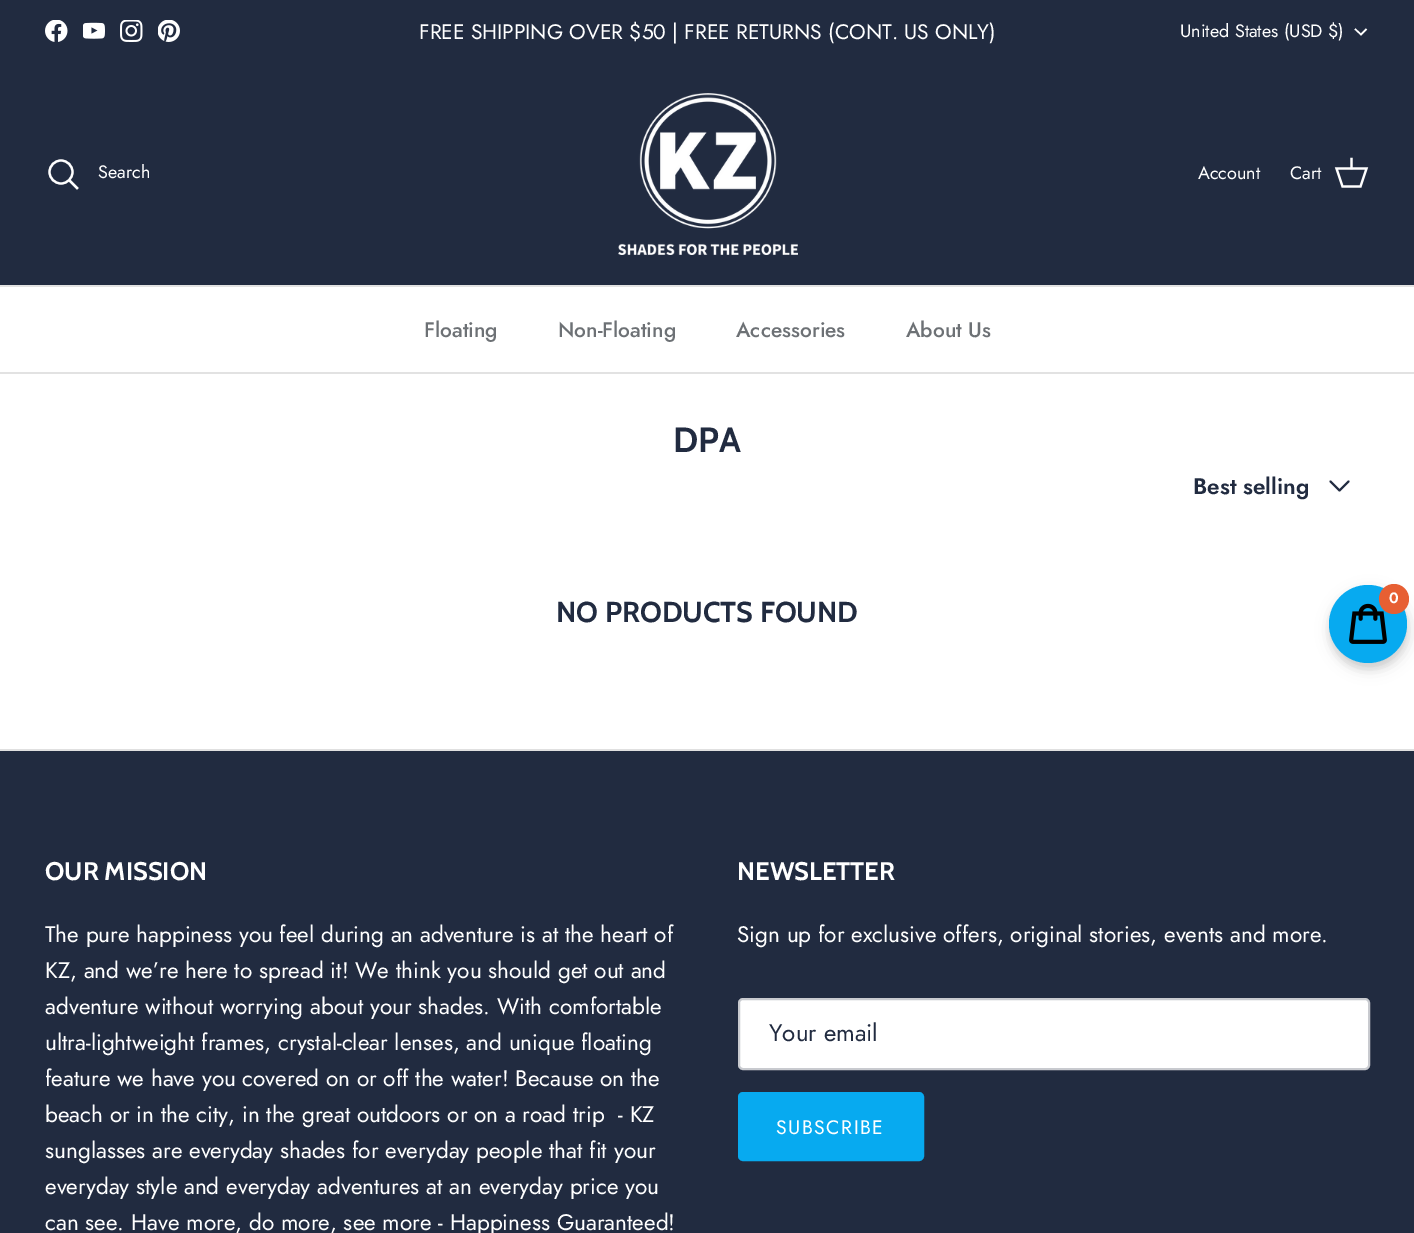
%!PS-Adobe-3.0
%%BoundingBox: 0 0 1414 1233
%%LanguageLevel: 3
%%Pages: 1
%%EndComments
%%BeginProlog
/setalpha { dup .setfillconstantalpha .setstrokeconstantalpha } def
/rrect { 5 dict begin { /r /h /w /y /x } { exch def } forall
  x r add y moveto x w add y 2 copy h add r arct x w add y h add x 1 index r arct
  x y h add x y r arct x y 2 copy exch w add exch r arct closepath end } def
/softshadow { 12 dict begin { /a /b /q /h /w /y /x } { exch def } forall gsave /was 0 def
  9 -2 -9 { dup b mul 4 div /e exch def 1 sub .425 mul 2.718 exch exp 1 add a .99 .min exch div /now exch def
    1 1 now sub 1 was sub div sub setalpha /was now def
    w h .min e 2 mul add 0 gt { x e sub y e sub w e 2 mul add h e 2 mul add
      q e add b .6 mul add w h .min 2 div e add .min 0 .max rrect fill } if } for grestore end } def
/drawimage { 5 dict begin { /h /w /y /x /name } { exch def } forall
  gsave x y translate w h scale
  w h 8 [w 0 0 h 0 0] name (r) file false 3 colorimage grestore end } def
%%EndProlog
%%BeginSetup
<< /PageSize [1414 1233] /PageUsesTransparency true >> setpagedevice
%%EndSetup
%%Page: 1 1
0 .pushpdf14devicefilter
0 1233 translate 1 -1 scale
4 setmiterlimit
1 setgray
0 0 1414 1233 rectfill
0.129 0.169 0.251 setrgbcolor
0 0 1414 285 rectfill
(images/1.raw) 45 20 23 22 drawimage
(images/2.raw) 83 22 22 17 drawimage
(images/3.raw) 120 20 23 22 drawimage
(images/4.raw) 158 20 22 22 drawimage
1 setgray
1.5 setlinewidth
newpath 1366.5 29 moveto 1361 34.5 lineto 1355 29 lineto stroke
0.886 setgray
0 285 1414 2 rectfill
1 setgray
2.2 setlinewidth
newpath 61 172 11.5 0 360 arc closepath stroke
2 setlinecap
newpath 70.5 181.5 moveto 77 188 lineto stroke
(images/5.raw) 618 93 180 162 drawimage
0 setlinecap
newpath 1336.5 168.5 moveto 1366.5 168.5 lineto 1360.5 186.5 lineto 1342.5 186.5 lineto closepath stroke
2 setlinecap
newpath 1351.5 168 moveto 1351.5 159 lineto stroke
0.886 setgray
0 372 1414 2 rectfill
0.129 0.169 0.251 setrgbcolor
2 setlinewidth
1 setlinecap
1 setlinejoin
newpath 1330.5 481.5 moveto 1339.5 490.5 lineto 1348.5 481.5 lineto stroke
0 setgray
1329 591 78 78 39 3 0.08 softshadow
1331 591 78 78 39 7.5 0.12 softshadow
0.027 0.667 0.941 setrgbcolor
newpath 1368 624 39 0 360 arc closepath fill
(images/6.raw) 1349 603 38 41 drawimage
0.906 0.373 0.2 setrgbcolor
newpath 1394 599 15 0 360 arc closepath fill
0.129 0.169 0.251 setrgbcolor
0 751 1414 482 rectfill
0.878 setgray
0 749 1414 2 rectfill
1 setgray
739 999 630 70 4 rrect gsave fill grestore
0.784 0.792 0.812 setrgbcolor
0 setlinecap
0 setlinejoin
stroke
0.027 0.667 0.941 setrgbcolor
739 1093 184 67 4 rrect gsave fill grestore
stroke
/Jost-Regular [21 0 0 -21 0 0] selectfont
1 setgray
419 39 moveto (FREE SHIPPING OVER $50 | FREE RETURNS \(CONT. US ONLY\)) show
/Jost-Regular [18 0 0 -18 0 0] selectfont
1180 37 moveto (United States \(USD $\)) show
98 178 moveto (Search) show
1198 179 moveto (Account) show
1290 179 moveto (Cart) show
/Jost-Medium [21 0 0 -21 0 0] selectfont
0.427 0.443 0.459 setrgbcolor
424 337 moveto (Floating) show
558 337 moveto (Non-Floating) show
736 337 moveto (Accessories) show
906 337 moveto (About Us) show
/Cabin-Bold [35 0 0 -35 0 0] selectfont
0.129 0.169 0.251 setrgbcolor
673 452 moveto (DPA) show
/Jost-SemiBold [22.5 0 0 -22.5 0 0] selectfont
1193 494 moveto (Best selling) show
/Cabin-Bold [28.75 0 0 -28.75 0 0] selectfont
556 622 moveto (NO PRODUCTS FOUND) show
/Jost-SemiBold [15 0 0 -15 0 0] selectfont
1 setgray
1389 603 moveto (0) show
/Cabin-Bold [25.5 0 0 -25.5 0 0] selectfont
45 880 moveto (OUR MISSION) show
/Jost-Regular [22.5 0 0 -22.5 0 0] selectfont
45 942 moveto (The pure happiness you feel during an adventure is at the heart of) show
45 978 moveto (KZ, and we’re here to spread it! We think you should get out and) show
45 1014 moveto (adventure without worrying about your shades. With comfortable) show
45 1050 moveto (ultra-lightweight frames, crystal-clear lenses, and unique floating) show
45 1086 moveto (feature we have you covered on or off the water! Because on the) show
45 1122 moveto (beach or in the city, in the great outdoors or on a road trip  - KZ) show
45 1158 moveto (sunglasses are everyday shades for everyday people that fit your) show
45 1194 moveto (everyday style and everyday adventures at an everyday price you) show
45 1230 moveto (can see. Have more, do more, see more - Happiness Guaranteed!) show
/Cabin-Bold [25.5 0 0 -25.5 0 0] selectfont
737 880 moveto (NEWSLETTER) show
/Jost-Regular [22.5 0 0 -22.5 0 0] selectfont
737 942 moveto (Sign up for exclusive offers, original stories, events and more.) show
/Jost-Regular [24 0 0 -24 0 0] selectfont
0.129 0.169 0.251 setrgbcolor
769 1041 moveto (Your email) show
/Jost-Regular [19.5 0 0 -19.5 0 0] selectfont
1 setgray
776 1134 moveto 1.5 0 (SUBSCRIBE) ashow
.poppdf14devicefilter showpage
%%EOF
